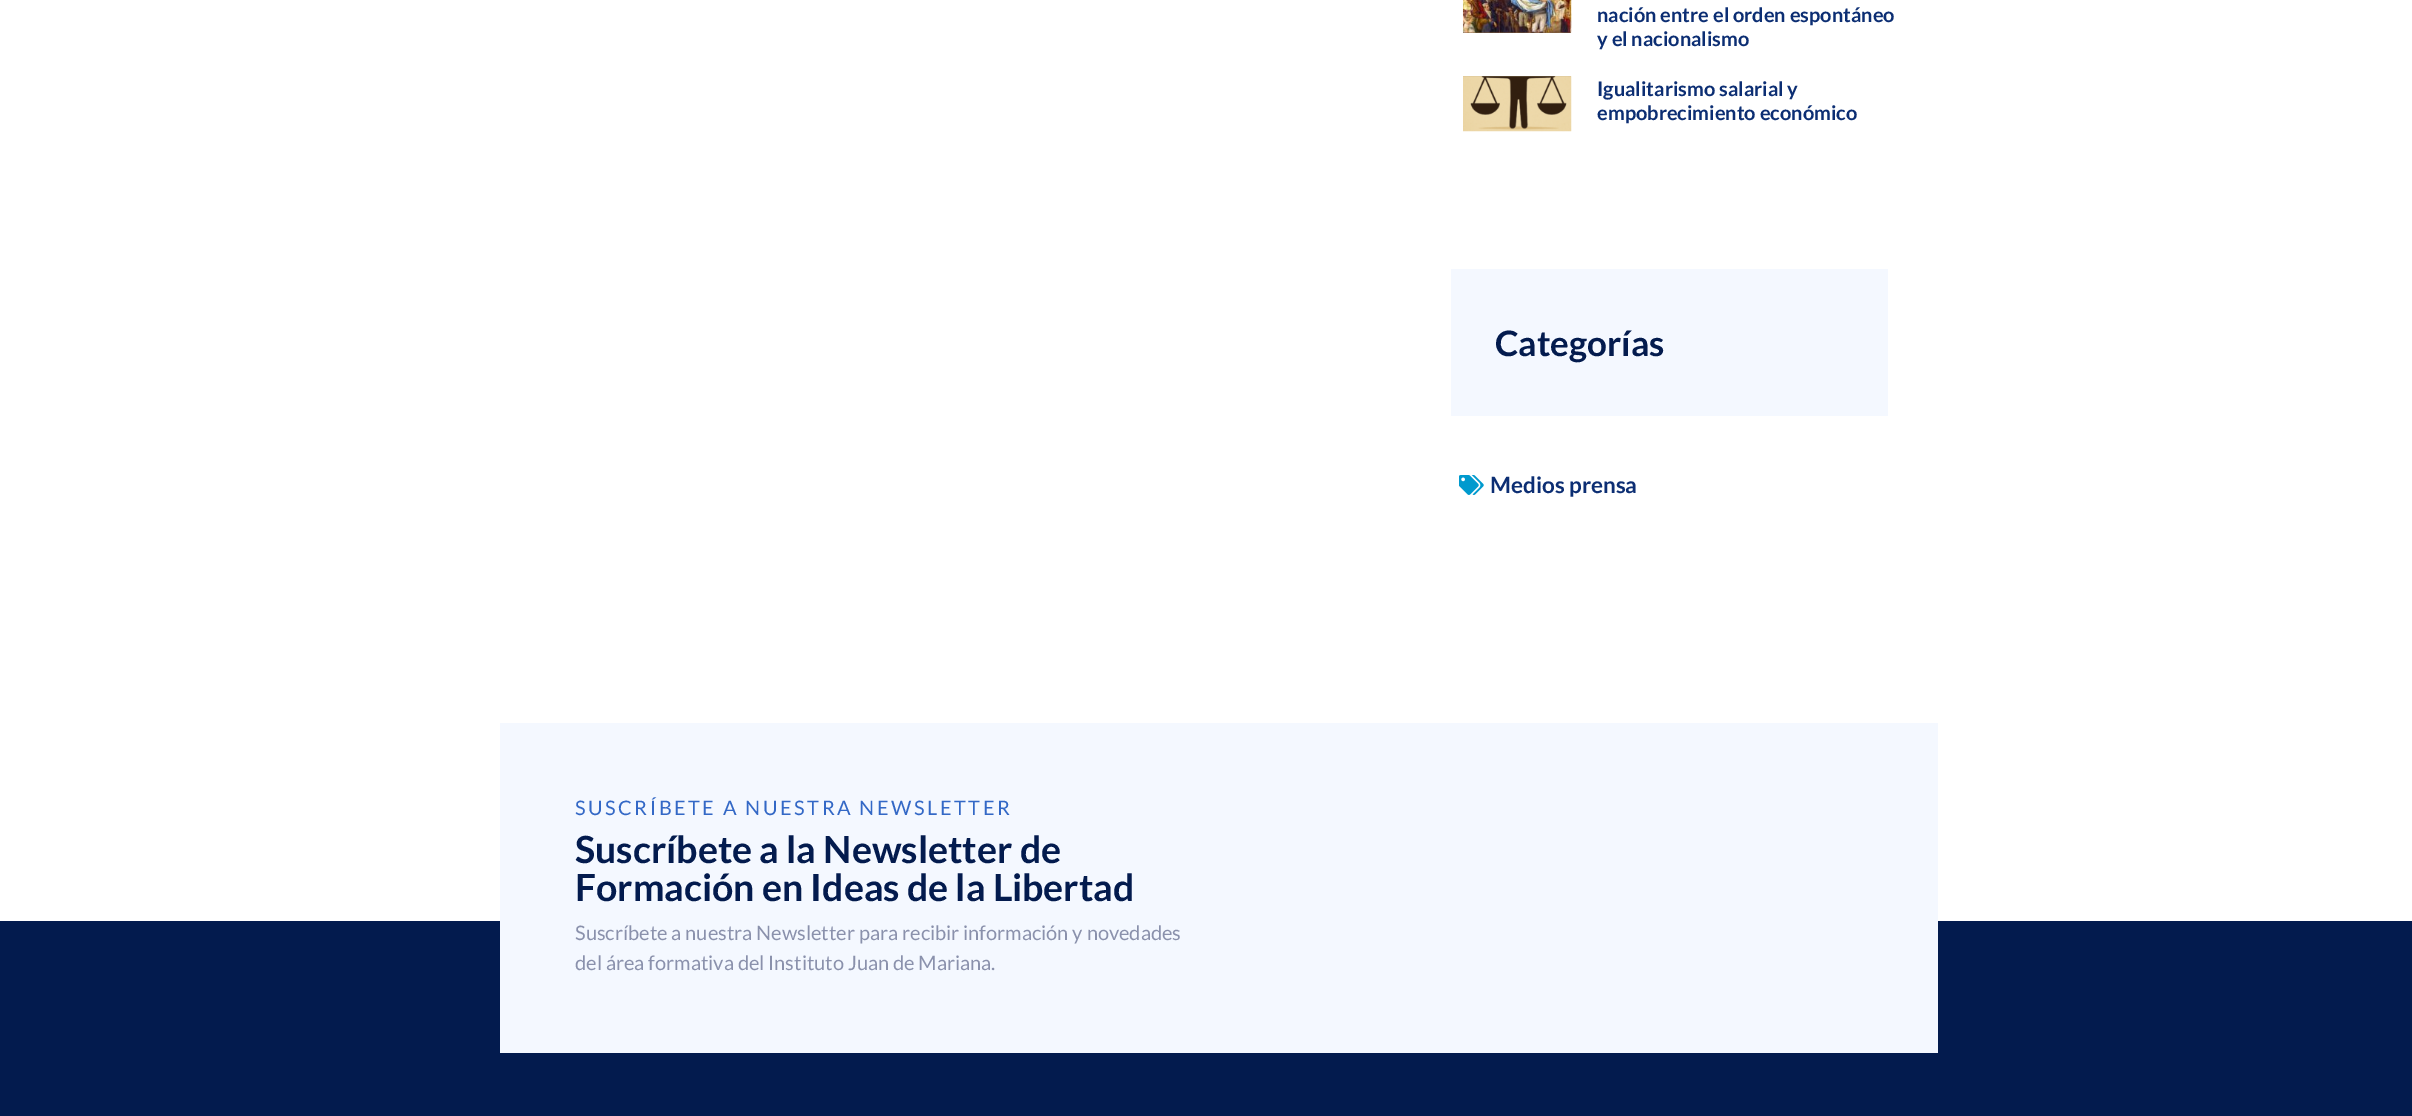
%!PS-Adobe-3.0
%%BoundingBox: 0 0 2412 1116
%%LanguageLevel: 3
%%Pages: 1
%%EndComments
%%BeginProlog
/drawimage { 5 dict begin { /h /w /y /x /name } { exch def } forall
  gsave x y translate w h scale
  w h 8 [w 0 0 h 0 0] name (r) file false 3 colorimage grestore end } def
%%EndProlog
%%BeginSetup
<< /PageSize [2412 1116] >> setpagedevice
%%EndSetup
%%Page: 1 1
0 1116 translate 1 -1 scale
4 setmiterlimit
1 setgray
0 0 2412 1116 rectfill
0.506 0.376 0.255 setrgbcolor
1463 32 108 1 rectfill
(images/1.raw) 1462 0 110 33 drawimage
(images/2.raw) 1463 76 109 56 drawimage
0.957 0.973 1 setrgbcolor
1451 269 437 147 rectfill
(images/3.raw) 1459 475 25 20 drawimage
0.012 0.106 0.306 setrgbcolor
0 921 2412 195 rectfill
0.957 0.973 1 setrgbcolor
500 723 1438 330 rectfill
/Lato-Bold [20 0 0 -20 0 0] selectfont
0.047 0.18 0.451 setrgbcolor
1597 22 moveto (nación entre el orden espontáneo) show
1597 46 moveto (y el nacionalismo) show
1597 96 moveto (Igualitarismo salarial y) show
1597 120 moveto (empobrecimiento económico) show
/Lato-Bold [35 0 0 -35 0 0] selectfont
0.012 0.106 0.306 setrgbcolor
1495 356 moveto (Categorías) show
/Lato-Bold [22.5 0 0 -22.5 0 0] selectfont
0.047 0.18 0.451 setrgbcolor
1490 493 moveto (Medios prensa) show
/Lato-Regular [20 0 0 -20 0 0] selectfont
0.2 0.408 0.776 setrgbcolor
575 815 moveto 2.5 0 (SUSCRÍBETE A NUESTRA NEWSLETTER) ashow
/Lato-Bold [37.5 0 0 -37.5 0 0] selectfont
0.012 0.106 0.306 setrgbcolor
575 863 moveto (Suscríbete a la Newsletter de) show
575 901 moveto (Formación en Ideas de la Libertad) show
/Lato-Regular [20 0 0 -20 0 0] selectfont
0.541 0.569 0.675 setrgbcolor
575 940 moveto (Suscríbete a nuestra Newsletter para recibir información y novedades) show
575 970 moveto (del área formativa del Instituto Juan de Mariana.) show
showpage
%%EOF
